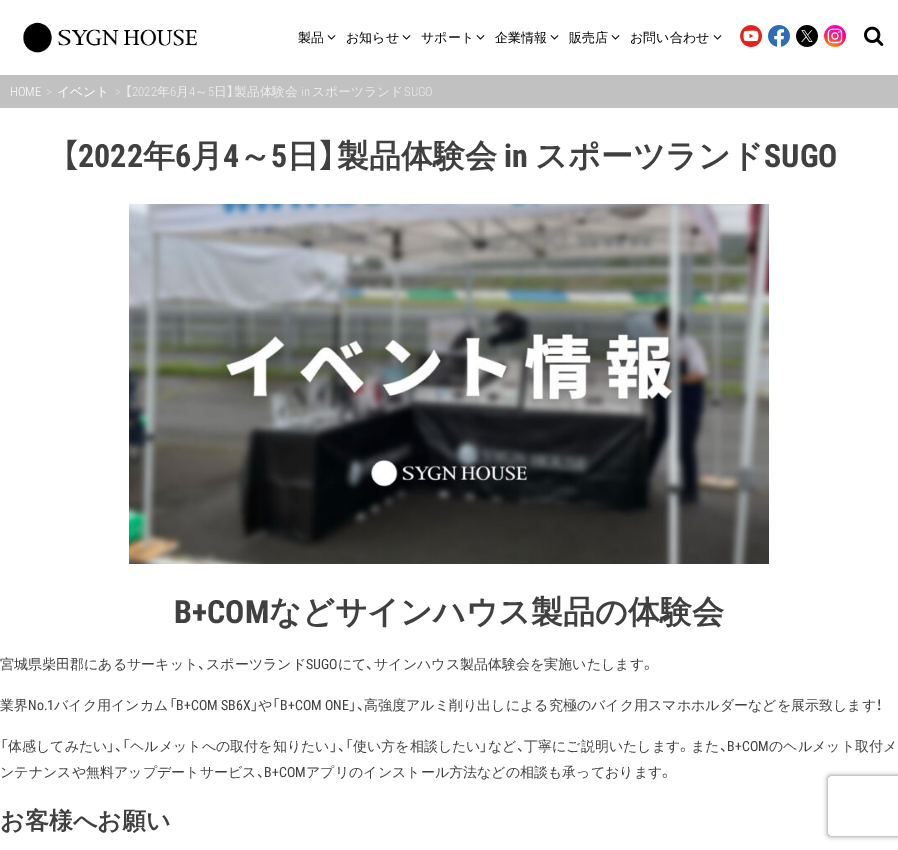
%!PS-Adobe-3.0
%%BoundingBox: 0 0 898 850
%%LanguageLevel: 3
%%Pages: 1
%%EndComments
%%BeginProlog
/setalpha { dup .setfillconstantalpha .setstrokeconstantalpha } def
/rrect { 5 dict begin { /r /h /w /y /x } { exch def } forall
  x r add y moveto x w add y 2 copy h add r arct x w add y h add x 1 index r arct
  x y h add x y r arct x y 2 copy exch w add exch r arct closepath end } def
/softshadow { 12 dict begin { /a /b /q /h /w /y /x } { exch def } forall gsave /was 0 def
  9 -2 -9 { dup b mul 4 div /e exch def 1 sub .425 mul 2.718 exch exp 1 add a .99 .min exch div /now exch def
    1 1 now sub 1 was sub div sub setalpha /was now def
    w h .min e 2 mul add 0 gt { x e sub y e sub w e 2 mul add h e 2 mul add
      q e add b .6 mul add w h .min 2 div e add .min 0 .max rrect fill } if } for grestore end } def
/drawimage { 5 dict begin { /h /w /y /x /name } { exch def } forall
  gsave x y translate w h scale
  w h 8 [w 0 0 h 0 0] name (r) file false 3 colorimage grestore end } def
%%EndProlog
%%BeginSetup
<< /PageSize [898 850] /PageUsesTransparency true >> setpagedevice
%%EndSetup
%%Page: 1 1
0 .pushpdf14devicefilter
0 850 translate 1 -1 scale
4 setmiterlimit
1 setgray
0 0 898 850 rectfill
(images/1.raw) 23 22 174 31 drawimage
(images/2.raw) 327 35 9 5 drawimage
(images/2.raw) 402 35 9 5 drawimage
(images/2.raw) 476 35 9 5 drawimage
(images/2.raw) 550 35 9 5 drawimage
(images/2.raw) 611 35 9 5 drawimage
(images/2.raw) 713 35 9 5 drawimage
(images/3.raw) 740 25 22 22 drawimage
(images/4.raw) 768 25 22 22 drawimage
(images/5.raw) 796 25 22 22 drawimage
(images/6.raw) 824 25 22 22 drawimage
(images/7.raw) 864 26 20 20 drawimage
0.757 setgray
0 75 898 33 rectfill
(images/8.raw) 129 204 640 360 drawimage
gsave
newpath 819 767 moveto 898 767 lineto 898 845 lineto 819 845 lineto closepath 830 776 moveto 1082 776 lineto 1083 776 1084 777 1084 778 curveto 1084 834 lineto 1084 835 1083 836 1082 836 curveto 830 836 lineto 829 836 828 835 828 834 curveto 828 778 lineto 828 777 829 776 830 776 curveto closepath eoclip newpath
0.502 setgray
828 776 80 60 2 2.5 1 softshadow
grestore
/WenQuanYiZenHei-Medium [13 0 0 -13 0 0] selectfont
0 setgray
298 42 moveto (製品) show
346 42 moveto (お知らせ) show
421 42 moveto (サポート) show
495 42 moveto (企業情報) show
569 42 moveto (販売店) show
630 42 moveto (お問い合わせ) show
/RobotoCondensed-Light [12.75 0 0 -12.75 0 0] selectfont
1 setgray
10 96 moveto (HOME) show
0.878 setgray
46 96 moveto (>) show
/WenQuanYiZenHei-Medium [12.75 0 0 -12.75 0 0] selectfont
1 setgray
57 96 moveto (イベント) show
/RobotoCondensed-Light [12.75 0 0 -12.75 0 0] selectfont
0.878 setgray
115 96 moveto (>) show
/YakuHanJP-Light [12.75 0 0 -12.75 0 0] selectfont
0.925 setgray
125 96 moveto (【) show
/RobotoCondensed-Light [12.75 0 0 -12.75 0 0] selectfont
132 96 moveto (2022) show
/WenQuanYiZenHei-Medium [12.75 0 0 -12.75 0 0] selectfont
157 96 moveto (年) show
/RobotoCondensed-Light [12.75 0 0 -12.75 0 0] selectfont
170 96 moveto (6) show
/WenQuanYiZenHei-Medium [12.75 0 0 -12.75 0 0] selectfont
176 96 moveto (月) show
/RobotoCondensed-Light [12.75 0 0 -12.75 0 0] selectfont
189 96 moveto (4) show
/WenQuanYiZenHei-Medium [12.75 0 0 -12.75 0 0] selectfont
195 96 moveto (～) show
/RobotoCondensed-Light [12.75 0 0 -12.75 0 0] selectfont
208 96 moveto (5) show
/WenQuanYiZenHei-Medium [12.75 0 0 -12.75 0 0] selectfont
214 96 moveto (日) show
/YakuHanJP-Light [12.75 0 0 -12.75 0 0] selectfont
227 96 moveto (】) show
/WenQuanYiZenHei-Medium [12.75 0 0 -12.75 0 0] selectfont
234 96 moveto (製品体験会) show
/RobotoCondensed-Light [12.75 0 0 -12.75 0 0] selectfont
301 96 moveto (in) show
/WenQuanYiZenHei-Medium [12.75 0 0 -12.75 0 0] selectfont
312 96 moveto (スポーツランド) show
/RobotoCondensed-Light [12.75 0 0 -12.75 0 0] selectfont
404 96 moveto (SUGO) show
/YakuHanJP-Bold [32 0 0 -32 0 0] selectfont
0.251 setgray
61 167 moveto (【) show
/RobotoCondensed-Bold [32 0 0 -32 0 0] selectfont
78 167 moveto (2022) show
/WenQuanYiZenHei-Bold [32 0 0 -32 0 0] selectfont
143 167 moveto (年) show
/RobotoCondensed-Bold [32 0 0 -32 0 0] selectfont
175 167 moveto (6) show
/WenQuanYiZenHei-Bold [32 0 0 -32 0 0] selectfont
191 167 moveto (月) show
/RobotoCondensed-Bold [32 0 0 -32 0 0] selectfont
223 167 moveto (4) show
/WenQuanYiZenHei-Bold [32 0 0 -32 0 0] selectfont
239 167 moveto (～) show
/RobotoCondensed-Bold [32 0 0 -32 0 0] selectfont
271 167 moveto (5) show
/WenQuanYiZenHei-Bold [32 0 0 -32 0 0] selectfont
287 167 moveto (日) show
/YakuHanJP-Bold [32 0 0 -32 0 0] selectfont
319 167 moveto (】) show
/WenQuanYiZenHei-Bold [32 0 0 -32 0 0] selectfont
337 167 moveto (製品体験会) show
/RobotoCondensed-Bold [32 0 0 -32 0 0] selectfont
504 167 moveto (in) show
/WenQuanYiZenHei-Bold [32 0 0 -32 0 0] selectfont
535 167 moveto (スポーツランド) show
/RobotoCondensed-Bold [32 0 0 -32 0 0] selectfont
764 167 moveto (SUGO) show
174 623 moveto (B+COM) show
/WenQuanYiZenHei-Bold [32 0 0 -32 0 0] selectfont
269 623 moveto (などサインハウス製品の体験会) show
/WenQuanYiZenHei-Medium [14 0 0 -14 0 0] selectfont
0 669 moveto (宮城県柴田郡にあるサーキット) show
/YakuHanJP-Regular [14 0 0 -14 0 0] selectfont
198 669 moveto (、) show
/WenQuanYiZenHei-Medium [14 0 0 -14 0 0] selectfont
206 669 moveto (スポーツランド) show
/RobotoCondensed-Regular [14 0 0 -14 0 0] selectfont
306 669 moveto (SUGO) show
/WenQuanYiZenHei-Medium [14 0 0 -14 0 0] selectfont
338 669 moveto (にて) show
/YakuHanJP-Regular [14 0 0 -14 0 0] selectfont
366 669 moveto (、) show
/WenQuanYiZenHei-Medium [14 0 0 -14 0 0] selectfont
374 669 moveto (サインハウス製品体験会を実施いたします) show
/YakuHanJP-Regular [14 0 0 -14 0 0] selectfont
644 669 moveto (。) show
/WenQuanYiZenHei-Medium [14 0 0 -14 0 0] selectfont
0 710 moveto (業界) show
/RobotoCondensed-Regular [14 0 0 -14 0 0] selectfont
28 710 moveto (No.1) show
/WenQuanYiZenHei-Medium [14 0 0 -14 0 0] selectfont
54 710 moveto (バイク用インカム) show
/YakuHanJP-Regular [14 0 0 -14 0 0] selectfont
169 710 moveto (「) show
/RobotoCondensed-Regular [14 0 0 -14 0 0] selectfont
176 710 moveto (B+COM SB6X) show
/YakuHanJP-Regular [14 0 0 -14 0 0] selectfont
251 710 moveto (」) show
/WenQuanYiZenHei-Medium [14 0 0 -14 0 0] selectfont
258 710 moveto (や) show
/YakuHanJP-Regular [14 0 0 -14 0 0] selectfont
272 710 moveto (「) show
/RobotoCondensed-Regular [14 0 0 -14 0 0] selectfont
280 710 moveto (B+COM ONE) show
/YakuHanJP-Regular [14 0 0 -14 0 0] selectfont
349 710 moveto (」、) show
/WenQuanYiZenHei-Medium [14 0 0 -14 0 0] selectfont
364 710 moveto (高強度アルミ削り出しによる究極のバイク用スマホホルダーなどを展示致します) show
/YakuHanJP-Regular [14 0 0 -14 0 0] selectfont
876 710 moveto (！) show
0 751 moveto (「) show
/WenQuanYiZenHei-Medium [14 0 0 -14 0 0] selectfont
8 751 moveto (体感してみたい) show
/YakuHanJP-Regular [14 0 0 -14 0 0] selectfont
107 751 moveto (」、「) show
/WenQuanYiZenHei-Medium [14 0 0 -14 0 0] selectfont
130 751 moveto (ヘルメットへの取付を知りたい) show
/YakuHanJP-Regular [14 0 0 -14 0 0] selectfont
330 751 moveto (」、「) show
/WenQuanYiZenHei-Medium [14 0 0 -14 0 0] selectfont
353 751 moveto (使い方を相談したい) show
/YakuHanJP-Regular [14 0 0 -14 0 0] selectfont
480 751 moveto (」) show
/WenQuanYiZenHei-Medium [14 0 0 -14 0 0] selectfont
488 751 moveto (など) show
/YakuHanJP-Regular [14 0 0 -14 0 0] selectfont
517 751 moveto (、) show
/WenQuanYiZenHei-Medium [14 0 0 -14 0 0] selectfont
524 751 moveto (丁寧にご説明いたします) show
/YakuHanJP-Regular [14 0 0 -14 0 0] selectfont
680 751 moveto (。) show
/WenQuanYiZenHei-Medium [14 0 0 -14 0 0] selectfont
691 751 moveto (また) show
/YakuHanJP-Regular [14 0 0 -14 0 0] selectfont
720 751 moveto (、) show
/RobotoCondensed-Regular [14 0 0 -14 0 0] selectfont
727 751 moveto (B+COM) show
/WenQuanYiZenHei-Medium [14 0 0 -14 0 0] selectfont
769 751 moveto (のヘルメット取付メ) show
0 777 moveto (ンテナンスや無料アップデートサービス) show
/YakuHanJP-Regular [14 0 0 -14 0 0] selectfont
257 777 moveto (、) show
/RobotoCondensed-Regular [14 0 0 -14 0 0] selectfont
264 777 moveto (B+COM) show
/WenQuanYiZenHei-Medium [14 0 0 -14 0 0] selectfont
306 777 moveto (アプリのインストール方法などの相談も承っております) show
/YakuHanJP-Regular [14 0 0 -14 0 0] selectfont
662 777 moveto (。) show
/WenQuanYiZenHei-Bold [24 0 0 -24 0 0] selectfont
0 829 moveto (お客様へお願い) show
.poppdf14devicefilter showpage
%%EOF
